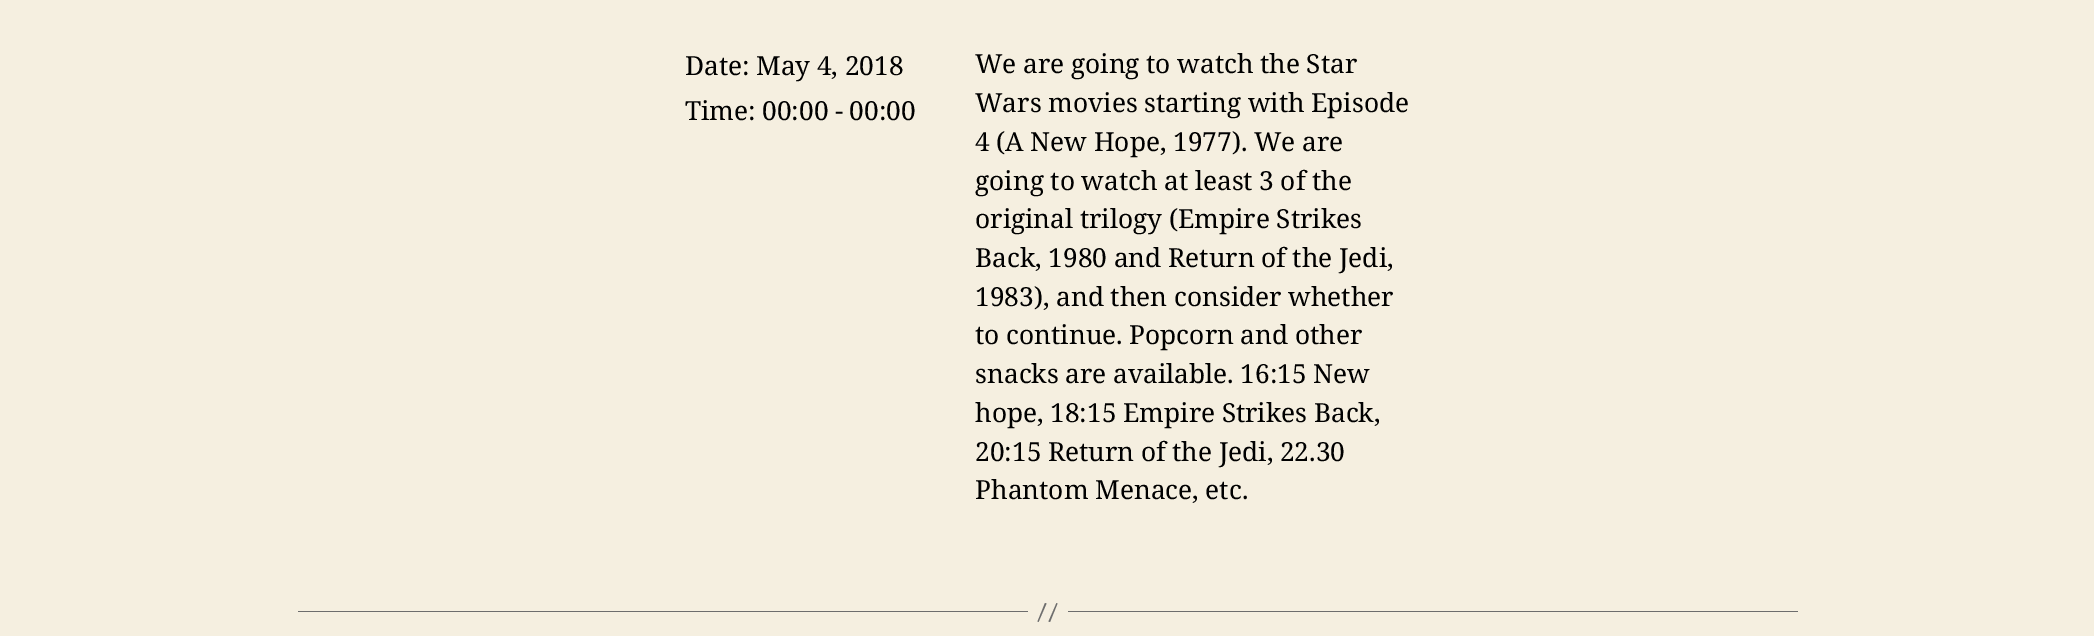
%!PS-Adobe-3.0
%%BoundingBox: 0 0 2094 636
%%LanguageLevel: 3
%%Pages: 1
%%EndComments
%%BeginProlog
%%EndProlog
%%BeginSetup
<< /PageSize [2094 636] >> setpagedevice
%%EndSetup
%%Page: 1 1
0 636 translate 1 -1 scale
4 setmiterlimit
0.961 0.937 0.878 setrgbcolor
0 0 2094 636 rectfill
0.427 setgray
1068 611 730 1 rectfill
298 611 730 1 rectfill
newpath 1045 603 moveto 1046.5 603.5 lineto 1038.5 622 lineto 1037.5 621.5 lineto closepath 1056.5 603 moveto 1057.5 603.5 lineto 1050 622 lineto 1048.5 621.5 lineto closepath fill
/NotoSerif-Regular [26.25 0 0 -26.25 0 0] selectfont
0 setgray
685 75 moveto (Date:) show
756 75 moveto -0.25 0 32 (May 4, 2018) widthshow
685 120 moveto (Time:) show
762 120 moveto -0.25 0 32 (00:00 - 00:00) widthshow
975 73 moveto -0.25 0 32 (We are going to watch the Star) widthshow
975 112 moveto -0.25 0 32 (Wars movies starting with Episode) widthshow
975 151 moveto -0.25 0 32 (4 \(A New Hope, 1977\). We are) widthshow
975 190 moveto -0.25 0 32 (going to watch at least 3 of the) widthshow
975 228 moveto -0.25 0 32 (original trilogy \(Empire Strikes) widthshow
975 267 moveto -0.25 0 32 (Back, 1980 and Return of the Jedi,) widthshow
975 306 moveto -0.25 0 32 (1983\), and then consider whether) widthshow
975 344 moveto -0.25 0 32 (to continue. Popcorn and other) widthshow
975 383 moveto -0.25 0 32 (snacks are available. 16:15 New) widthshow
975 422 moveto -0.25 0 32 (hope, 18:15 Empire Strikes Back,) widthshow
975 461 moveto -0.25 0 32 (20:15 Return of the Jedi, 22.30) widthshow
975 499 moveto -0.25 0 32 (Phantom Menace, etc.) widthshow
showpage
%%EOF
